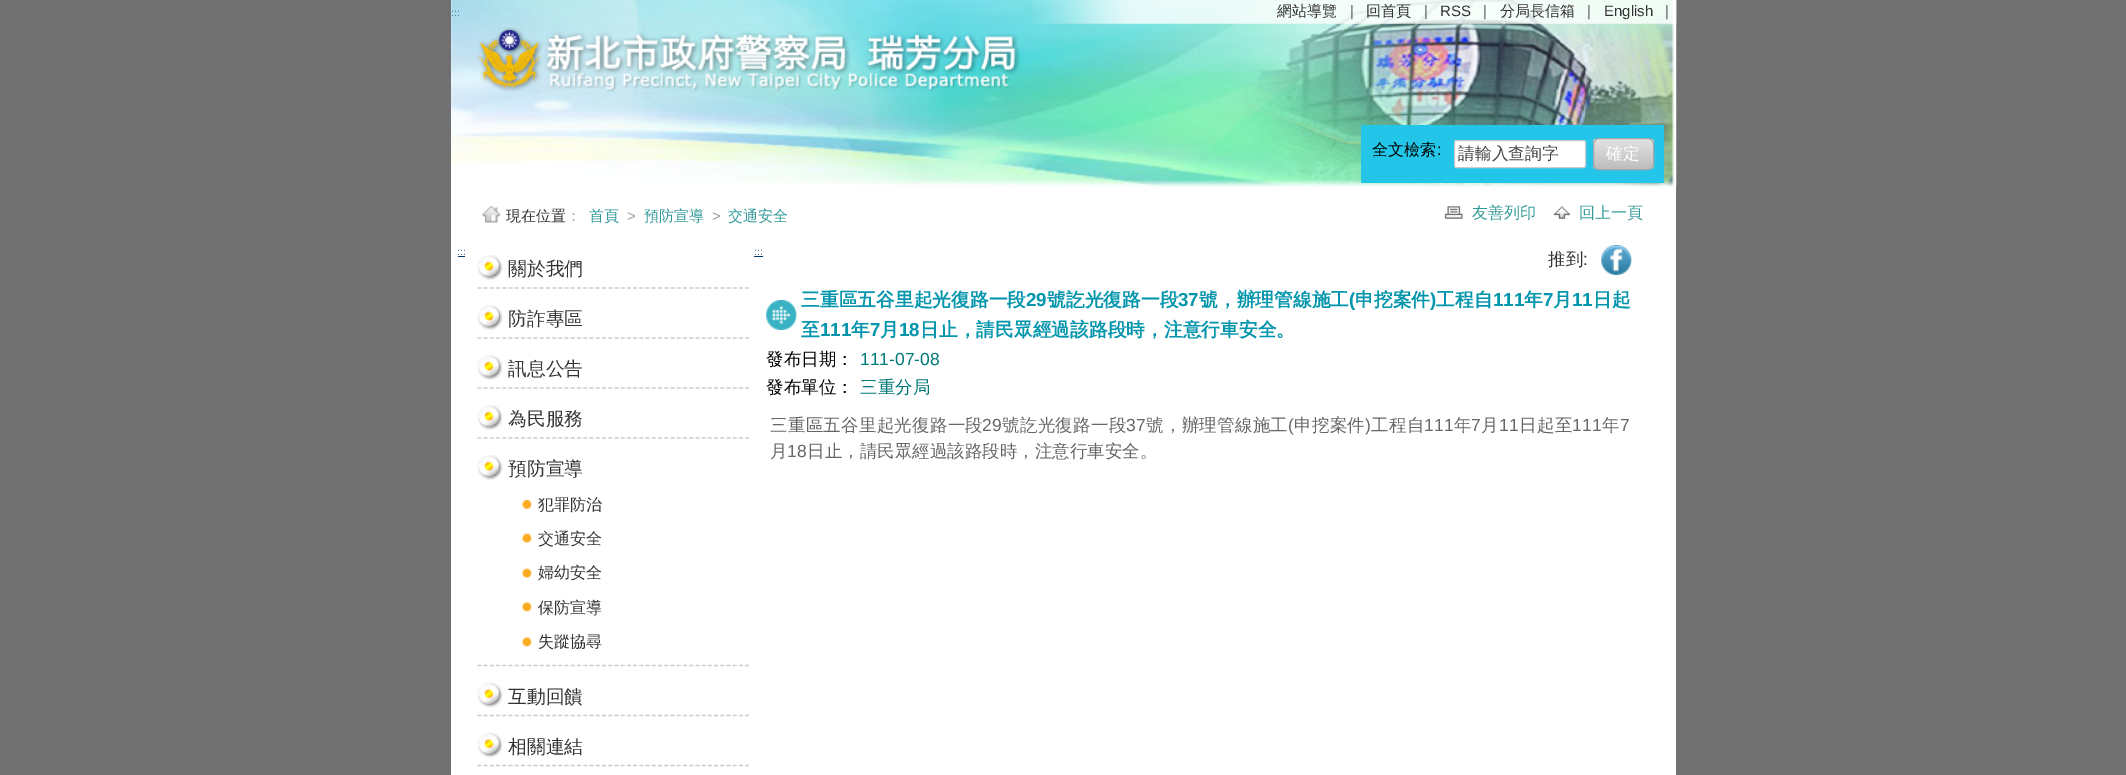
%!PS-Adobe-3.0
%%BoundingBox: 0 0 2126 775
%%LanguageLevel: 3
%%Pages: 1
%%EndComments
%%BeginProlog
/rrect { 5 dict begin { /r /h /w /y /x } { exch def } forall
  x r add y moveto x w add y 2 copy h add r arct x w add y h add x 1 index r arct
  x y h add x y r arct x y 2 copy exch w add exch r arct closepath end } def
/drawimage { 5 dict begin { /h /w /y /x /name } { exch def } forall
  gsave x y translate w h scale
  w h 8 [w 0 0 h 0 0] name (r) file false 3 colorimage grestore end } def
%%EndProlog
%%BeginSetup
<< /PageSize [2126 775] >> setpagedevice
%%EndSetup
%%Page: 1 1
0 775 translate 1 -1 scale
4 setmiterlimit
1 setgray
0 0 2126 775 rectfill
(images/1.raw) 0 0 2126 775 drawimage
451 0 1225 775 rectfill
(images/2.raw) 451 0 1226 188 drawimage
(images/3.raw) 1032 0 645 24 drawimage
(images/4.raw) 477 27 543 65 drawimage
0.137 0.776 0.91 setrgbcolor
1361 125 303 58 rectfill
1 setgray
1454.5 140.5 131 27 2 rrect gsave fill grestore
0.8 setgray
stroke
gsave
1593 138 61 32 6 rrect clip newpath
gsave newpath 1593 139 moveto 1654 139 lineto 1654 169 lineto 1593 169 lineto closepath clip newpath
<< /ShadingType 2 /ColorSpace /DeviceRGB /Coords [1623 169 1623 139] /Extend [true true] /Function << /FunctionType 2 /Domain [0 1] /C0 [0.741 0.741 0.741] /C1 [0.886 0.886 0.886] /N 1 >> >> shfill grestore
grestore
0.647 setgray
1593.5 138.5 60 31 5.5 rrect stroke
(images/5.raw) 482 206 19 17 drawimage
(images/6.raw) 1444 206 19 13 drawimage
(images/7.raw) 1553 206 18 13 drawimage
0 0.2 0.4 setrgbcolor
458 256 7 1 rectfill
(images/8.raw) 477 255 26 25 drawimage
0.8 setgray
1.2 setlinewidth
[3.75 2.48] 0 setdash
newpath 477.5 288 moveto 749 288 lineto stroke
(images/8.raw) 477 305 26 25 drawimage
newpath 477.5 338 moveto 749 338 lineto stroke
(images/8.raw) 477 355 26 25 drawimage
newpath 477.5 388 moveto 749 388 lineto stroke
(images/8.raw) 477 405 26 25 drawimage
newpath 477.5 438 moveto 749 438 lineto stroke
(images/8.raw) 477 455 26 25 drawimage
newpath 477.5 665.5 moveto 749 665.5 lineto stroke
(images/9.raw) 522 500 10 9 drawimage
(images/10.raw) 522 533 10 10 drawimage
(images/10.raw) 522 568 10 10 drawimage
(images/11.raw) 522 602 10 10 drawimage
(images/11.raw) 522 637 10 10 drawimage
(images/12.raw) 477 682 26 26 drawimage
newpath 477.5 715.5 moveto 749 715.5 lineto stroke
(images/12.raw) 477 732 26 26 drawimage
newpath 477.5 765.5 moveto 749 765.5 lineto stroke
0 0.2 0.4 setrgbcolor
754 256 9 1 rectfill
(images/13.raw) 1601 245 31 30 drawimage
(images/14.raw) 766 300 31 30 drawimage
/LiberationSans-Regular [10 0 0 -10 0 0] selectfont
0.004 0.384 0.478 setrgbcolor
451 16 moveto (:::) show
/WenQuanYiZenHei-Medium [15 0 0 -15 0 0] selectfont
0.2 setgray
1277 16 moveto (網站導覽) show
/LiberationSans-Regular [15 0 0 -15 0 0] selectfont
0.4 setgray
1350 16 moveto (|) show
/WenQuanYiZenHei-Medium [15 0 0 -15 0 0] selectfont
0.2 setgray
1366 16 moveto (回首頁) show
/LiberationSans-Regular [15 0 0 -15 0 0] selectfont
0.4 setgray
1424 16 moveto (|) show
0.2 setgray
1440 16 moveto (RSS) show
0.4 setgray
1483 16 moveto (|) show
/WenQuanYiZenHei-Medium [15 0 0 -15 0 0] selectfont
0.2 setgray
1500 16 moveto (分局長信箱) show
/LiberationSans-Regular [15 0 0 -15 0 0] selectfont
0.4 setgray
1587 16 moveto (|) show
0.2 setgray
1604 16 moveto (English) show
0.4 setgray
1665 16 moveto (|) show
/WenQuanYiZenHei-Medium [16 0 0 -16 0 0] selectfont
0 setgray
1372 155 moveto (全文檢索) show
/LiberationSans-Regular [16 0 0 -16 0 0] selectfont
1437 155 moveto (:) show
/WenQuanYiZenHei-Medium [16.75 0 0 -16.75 0 0] selectfont
0.267 setgray
1458 159 moveto (請輸入查詢字) show
1 setgray
1606 159 moveto (確定) show
/WenQuanYiZenHei-Medium [15 0 0 -15 0 0] selectfont
0.2 setgray
506 221 moveto (現在位置) show
0.6 setgray
566 221 moveto (：) show
0.2 0.6 0.6 setrgbcolor
589 221 moveto (首頁) show
/LiberationSans-Regular [15 0 0 -15 0 0] selectfont
0.6 setgray
627 221 moveto (>) show
/WenQuanYiZenHei-Medium [15 0 0 -15 0 0] selectfont
0.2 0.6 0.6 setrgbcolor
644 221 moveto (預防宣導) show
/LiberationSans-Regular [15 0 0 -15 0 0] selectfont
0.6 setgray
712 221 moveto (>) show
/WenQuanYiZenHei-Medium [15 0 0 -15 0 0] selectfont
0.2 0.6 0.6 setrgbcolor
728 221 moveto (交通安全) show
/WenQuanYiZenHei-Medium [16 0 0 -16 0 0] selectfont
1472 218 moveto (友善列印) show
1579 218 moveto (回上一頁) show
/LiberationSans-Regular [10 0 0 -10 0 0] selectfont
0 0.2 0.4 setrgbcolor
457 255 moveto (:::) show
/WenQuanYiZenHei-Medium [18.75 0 0 -18.75 0 0] selectfont
0.2 setgray
508 275 moveto (關於我們) show
508 325 moveto (防詐專區) show
508 375 moveto (訊息公告) show
508 425 moveto (為民服務) show
508 475 moveto (預防宣導) show
/WenQuanYiZenHei-Medium [16 0 0 -16 0 0] selectfont
538 510 moveto (犯罪防治) show
538 544 moveto (交通安全) show
538 578 moveto (婦幼安全) show
538 613 moveto (保防宣導) show
538 647 moveto (失蹤協尋) show
/WenQuanYiZenHei-Medium [18.75 0 0 -18.75 0 0] selectfont
508 703 moveto (互動回饋) show
508 753 moveto (相關連結) show
/LiberationSans-Regular [10 0 0 -10 0 0] selectfont
0 0.2 0.4 setrgbcolor
754 255 moveto (:::) show
/WenQuanYiZenHei-Medium [17.5 0 0 -17.5 0 0] selectfont
0.2 setgray
1548 265 moveto (推到) show
/LiberationSans-Regular [17.5 0 0 -17.5 0 0] selectfont
1583 265 moveto (:) show
/WenQuanYiZenHei-Bold [18.75 0 0 -18.75 0 0] selectfont
0.008 0.584 0.675 setrgbcolor
801 306 moveto (三重區五谷里起光復路一段) show
/LiberationSans-Bold [18.75 0 0 -18.75 0 0] selectfont
1026 306 moveto (29) show
/WenQuanYiZenHei-Bold [18.75 0 0 -18.75 0 0] selectfont
1047 306 moveto (號訖光復路一段) show
/LiberationSans-Bold [18.75 0 0 -18.75 0 0] selectfont
1178 306 moveto (37) show
/WenQuanYiZenHei-Bold [18.75 0 0 -18.75 0 0] selectfont
1199 306 moveto (號，辦理管線施工) show
/LiberationSans-Bold [18.75 0 0 -18.75 0 0] selectfont
1349 306 moveto (\() show
/WenQuanYiZenHei-Bold [18.75 0 0 -18.75 0 0] selectfont
1355 306 moveto (申挖案件) show
/LiberationSans-Bold [18.75 0 0 -18.75 0 0] selectfont
1430 306 moveto (\)) show
/WenQuanYiZenHei-Bold [18.75 0 0 -18.75 0 0] selectfont
1436 306 moveto (工程自) show
/LiberationSans-Bold [18.75 0 0 -18.75 0 0] selectfont
1493 306 moveto (111) show
/WenQuanYiZenHei-Bold [18.75 0 0 -18.75 0 0] selectfont
1524 306 moveto (年) show
/LiberationSans-Bold [18.75 0 0 -18.75 0 0] selectfont
1543 306 moveto (7) show
/WenQuanYiZenHei-Bold [18.75 0 0 -18.75 0 0] selectfont
1553 306 moveto (月) show
/LiberationSans-Bold [18.75 0 0 -18.75 0 0] selectfont
1572 306 moveto (11) show
/WenQuanYiZenHei-Bold [18.75 0 0 -18.75 0 0] selectfont
1593 306 moveto (日起) show
801 336 moveto (至) show
/LiberationSans-Bold [18.75 0 0 -18.75 0 0] selectfont
820 336 moveto (111) show
/WenQuanYiZenHei-Bold [18.75 0 0 -18.75 0 0] selectfont
851 336 moveto (年) show
/LiberationSans-Bold [18.75 0 0 -18.75 0 0] selectfont
870 336 moveto (7) show
/WenQuanYiZenHei-Bold [18.75 0 0 -18.75 0 0] selectfont
880 336 moveto (月) show
/LiberationSans-Bold [18.75 0 0 -18.75 0 0] selectfont
899 336 moveto (18) show
/WenQuanYiZenHei-Bold [18.75 0 0 -18.75 0 0] selectfont
920 336 moveto (日止，請民眾經過該路段時，注意行車安全。) show
/WenQuanYiZenHei-Medium [17.5 0 0 -17.5 0 0] selectfont
0 setgray
766 365 moveto (發布日期：) show
/LiberationSans-Regular [17.5 0 0 -17.5 0 0] selectfont
0 0.475 0.475 setrgbcolor
860 365 moveto (111-07-08) show
/WenQuanYiZenHei-Medium [17.5 0 0 -17.5 0 0] selectfont
0 setgray
766 393 moveto (發布單位：) show
0 0.475 0.475 setrgbcolor
860 393 moveto (三重分局) show
0.4 setgray
770 431 moveto 0.25 0 (三重區五谷里起光復路一段) ashow
/LiberationSans-Regular [17.5 0 0 -17.5 0 0] selectfont
982 431 moveto 0.25 0 (29) ashow
/WenQuanYiZenHei-Medium [17.5 0 0 -17.5 0 0] selectfont
1002 431 moveto 0.25 0 (號訖光復路一段) ashow
/LiberationSans-Regular [17.5 0 0 -17.5 0 0] selectfont
1126 431 moveto 0.25 0 (37) ashow
/WenQuanYiZenHei-Medium [17.5 0 0 -17.5 0 0] selectfont
1146 431 moveto 0.25 0 (號，辦理管線施工) ashow
/LiberationSans-Regular [17.5 0 0 -17.5 0 0] selectfont
1288 431 moveto 0.25 0 (\() ashow
/WenQuanYiZenHei-Medium [17.5 0 0 -17.5 0 0] selectfont
1294 431 moveto 0.25 0 (申挖案件) ashow
/LiberationSans-Regular [17.5 0 0 -17.5 0 0] selectfont
1365 431 moveto 0.25 0 (\)) ashow
/WenQuanYiZenHei-Medium [17.5 0 0 -17.5 0 0] selectfont
1371 431 moveto 0.25 0 (工程自) ashow
/LiberationSans-Regular [17.5 0 0 -17.5 0 0] selectfont
1424 431 moveto 0.25 0 (111) ashow
/WenQuanYiZenHei-Medium [17.5 0 0 -17.5 0 0] selectfont
1454 431 moveto 0.25 0 (年) ashow
/LiberationSans-Regular [17.5 0 0 -17.5 0 0] selectfont
1471 431 moveto 0.25 0 (7) ashow
/WenQuanYiZenHei-Medium [17.5 0 0 -17.5 0 0] selectfont
1481 431 moveto 0.25 0 (月) ashow
/LiberationSans-Regular [17.5 0 0 -17.5 0 0] selectfont
1499 431 moveto 0.25 0 (11) ashow
/WenQuanYiZenHei-Medium [17.5 0 0 -17.5 0 0] selectfont
1519 431 moveto 0.25 0 (日起至) ashow
/LiberationSans-Regular [17.5 0 0 -17.5 0 0] selectfont
1572 431 moveto 0.25 0 (111) ashow
/WenQuanYiZenHei-Medium [17.5 0 0 -17.5 0 0] selectfont
1602 431 moveto 0.25 0 (年) ashow
/LiberationSans-Regular [17.5 0 0 -17.5 0 0] selectfont
1620 431 moveto 0.25 0 (7) ashow
/WenQuanYiZenHei-Medium [17.5 0 0 -17.5 0 0] selectfont
770 457 moveto (月) show
/LiberationSans-Regular [17.5 0 0 -17.5 0 0] selectfont
787 457 moveto (18) show
/WenQuanYiZenHei-Medium [17.5 0 0 -17.5 0 0] selectfont
807 457 moveto (日止，請民眾經過該路段時，注意行車安全。) show
showpage
%%EOF
